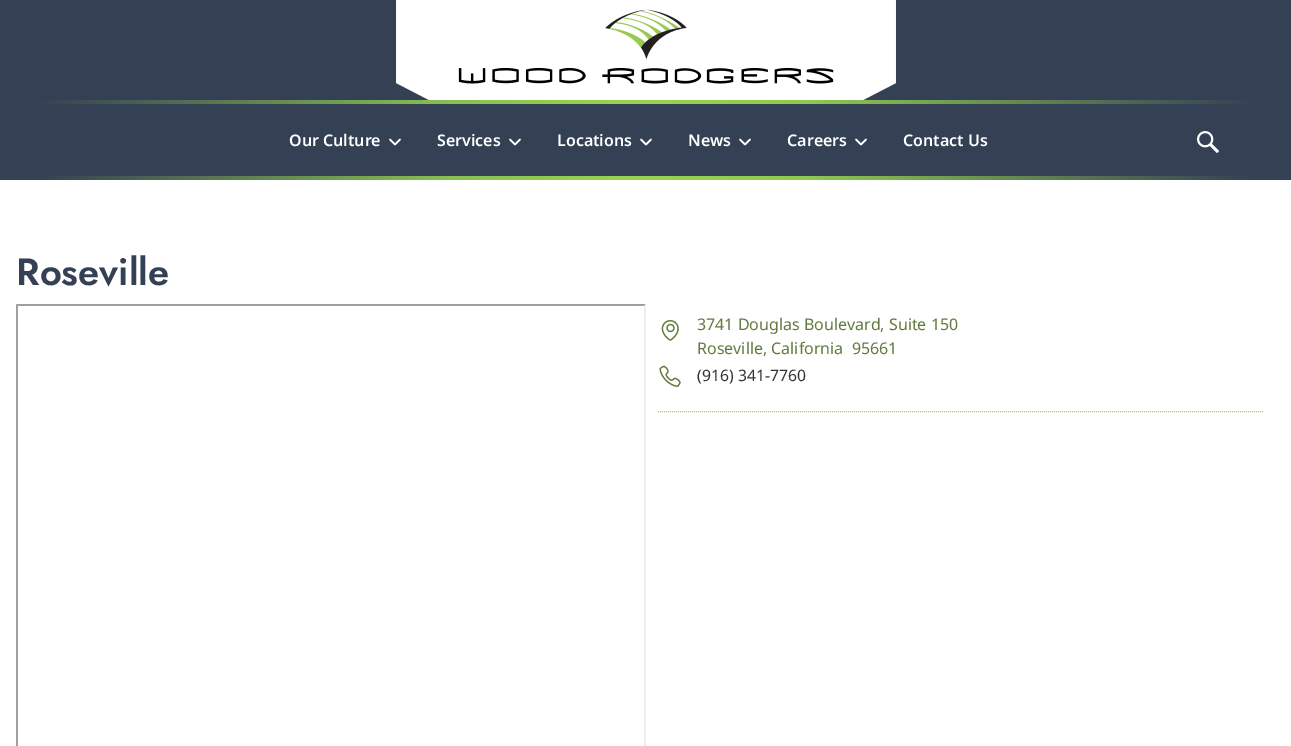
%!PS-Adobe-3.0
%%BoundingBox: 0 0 1291 746
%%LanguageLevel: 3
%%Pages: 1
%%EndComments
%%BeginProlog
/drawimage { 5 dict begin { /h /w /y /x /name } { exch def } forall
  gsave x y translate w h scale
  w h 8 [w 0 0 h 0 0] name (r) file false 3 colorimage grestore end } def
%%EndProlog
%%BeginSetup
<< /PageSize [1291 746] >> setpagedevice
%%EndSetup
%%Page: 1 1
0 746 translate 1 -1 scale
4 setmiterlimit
1 setgray
0 0 1291 746 rectfill
0.204 0.251 0.329 setrgbcolor
0 0 1291 180 rectfill
(images/1.raw) 396 0 500 100 drawimage
gsave newpath 40 100 moveto 1251 100 lineto 1251 180 lineto 40 180 lineto closepath clip newpath
<< /ShadingType 2 /ColorSpace /DeviceRGB /Coords [1259 140 32 140] /Extend [true true] /Function << /FunctionType 3 /Domain [0 1] /Functions [<< /FunctionType 2 /Domain [0 1] /C0 [0.204 0.251 0.329] /C1 [0.561 0.788 0.314] /N 1 >> << /FunctionType 2 /Domain [0 1] /C0 [0.561 0.788 0.314] /C1 [0.592 0.835 0.314] /N 1 >> << /FunctionType 2 /Domain [0 1] /C0 [0.592 0.835 0.314] /C1 [0.537 0.753 0.318] /N 1 >> << /FunctionType 2 /Domain [0 1] /C0 [0.537 0.753 0.318] /C1 [0.204 0.251 0.329] /N 1 >>] /Bounds [0.37 0.51 0.66] /Encode [0 1 0 1 0 1 0 1] >> >> shfill grestore
40 104 1211 72 rectfill
1 setgray
1.7 setlinewidth
1 setlinecap
1 setlinejoin
newpath 390 139.5 moveto 395 144.5 lineto 400 139.5 lineto stroke
newpath 510 139.5 moveto 515 144.5 lineto 520 139.5 lineto stroke
newpath 641 139.5 moveto 646 144.5 lineto 651 139.5 lineto stroke
newpath 740 139.5 moveto 745 144.5 lineto 750 139.5 lineto stroke
newpath 856 139.5 moveto 861 144.5 lineto 866 139.5 lineto stroke
(images/2.raw) 1197 131 22 22 drawimage
0.624 setgray
newpath 16 304 moveto 646 304 lineto 644 306 lineto 18 306 lineto closepath fill
newpath 16 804 moveto 16 304 lineto 18 306 lineto 18 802 lineto closepath fill
0.933 setgray
newpath 646 304 moveto 646 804 lineto 644 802 lineto 644 306 lineto closepath fill
(images/3.raw) 661 320 18 21 drawimage
(images/4.raw) 659 365 22 22 drawimage
0.592 0.835 0.314 setrgbcolor
1 setlinewidth
0 setlinecap
0 setlinejoin
[1 1] 0 setdash
newpath 658 411.5 moveto 1263 411.5 lineto stroke
/NotoSans-SemiBold [16 0 0 -16 0 0] selectfont
1 setgray
289 146 moveto (Our Culture) show
437 146 moveto (Services) show
557 146 moveto (Locations) show
688 146 moveto (News) show
787 146 moveto (Careers) show
903 146 moveto (Contact Us) show
/Jost-SemiBold [38 0 0 -38 0 0] selectfont
0.204 0.251 0.329 setrgbcolor
16 285 moveto (Roseville) show
/NotoSans-Regular [16 0 0 -16 0 0] selectfont
0.38 0.478 0.239 setrgbcolor
697 330 moveto (3741 Douglas Boulevard, Suite 150) show
697 354 moveto (Roseville, California  95661) show
/NotoSans-Regular [15.75 0 0 -15.75 0 0] selectfont
0.2 setgray
697 381 moveto (\(916\) 341-7760) show
showpage
%%EOF
